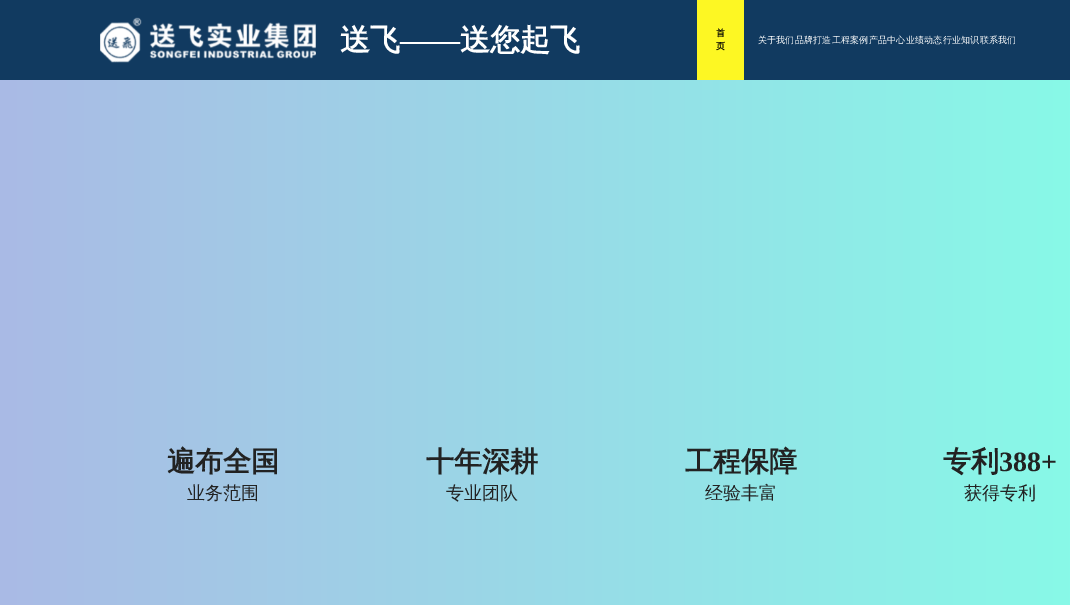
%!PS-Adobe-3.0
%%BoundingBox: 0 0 1070 605
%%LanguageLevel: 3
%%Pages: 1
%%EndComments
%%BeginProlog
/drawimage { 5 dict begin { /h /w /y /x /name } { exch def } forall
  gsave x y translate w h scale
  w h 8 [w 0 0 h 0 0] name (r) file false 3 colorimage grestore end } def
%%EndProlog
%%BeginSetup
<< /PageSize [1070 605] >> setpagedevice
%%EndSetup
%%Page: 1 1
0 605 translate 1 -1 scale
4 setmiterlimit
1 setgray
0 0 1070 605 rectfill
0.067 0.227 0.376 setrgbcolor
0 0 1070 80 rectfill
(images/1.raw) 100 17 216 46 drawimage
0.992 0.969 0.137 setrgbcolor
697 0 47 80 rectfill
gsave newpath 0 80 moveto 1070 80 lineto 1070 605 lineto 0 605 lineto closepath clip newpath
<< /ShadingType 2 /ColorSpace /DeviceRGB /Coords [0 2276 1070 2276] /Extend [true true] /Function << /FunctionType 2 /Domain [0 1] /C0 [0.667 0.729 0.898] /C1 [0.533 0.976 0.91] /N 1 >> >> shfill grestore
/WenQuanYiZenHei-Bold [30 0 0 -30 0 0] selectfont
1 setgray
340 50 moveto (送飞) show
/LiberationSerif-Bold [30 0 0 -30 0 0] selectfont
400 50 moveto (——) show
/WenQuanYiZenHei-Bold [30 0 0 -30 0 0] selectfont
460 50 moveto (送您起飞) show
/WenQuanYiZenHei-Bold [9 0 0 -9 0 0] selectfont
0 setgray
716 36 moveto (首) show
716 49 moveto (页) show
/WenQuanYiZenHei-Medium [9 0 0 -9 0 0] selectfont
1 setgray
758 43 moveto (关于我们) show
795 43 moveto (品牌打造) show
832 43 moveto (工程案例) show
869 43 moveto (产品中心) show
906 43 moveto (业绩动态) show
943 43 moveto (行业知识) show
980 43 moveto (联系我们) show
/WenQuanYiZenHei-Bold [28 0 0 -28 0 0] selectfont
0.133 setgray
167 471 moveto (遍布全国) show
/WenQuanYiZenHei-Medium [18 0 0 -18 0 0] selectfont
187 499 moveto (业务范围) show
/WenQuanYiZenHei-Bold [28 0 0 -28 0 0] selectfont
426 471 moveto (十年深耕) show
/WenQuanYiZenHei-Medium [18 0 0 -18 0 0] selectfont
446 499 moveto (专业团队) show
/WenQuanYiZenHei-Bold [28 0 0 -28 0 0] selectfont
685 471 moveto (工程保障) show
/WenQuanYiZenHei-Medium [18 0 0 -18 0 0] selectfont
705 499 moveto (经验丰富) show
/WenQuanYiZenHei-Bold [28 0 0 -28 0 0] selectfont
943 471 moveto (专利) show
/LiberationSerif-Bold [28 0 0 -28 0 0] selectfont
999 471 moveto (388+) show
/WenQuanYiZenHei-Medium [18 0 0 -18 0 0] selectfont
964 499 moveto (获得专利) show
showpage
%%EOF
